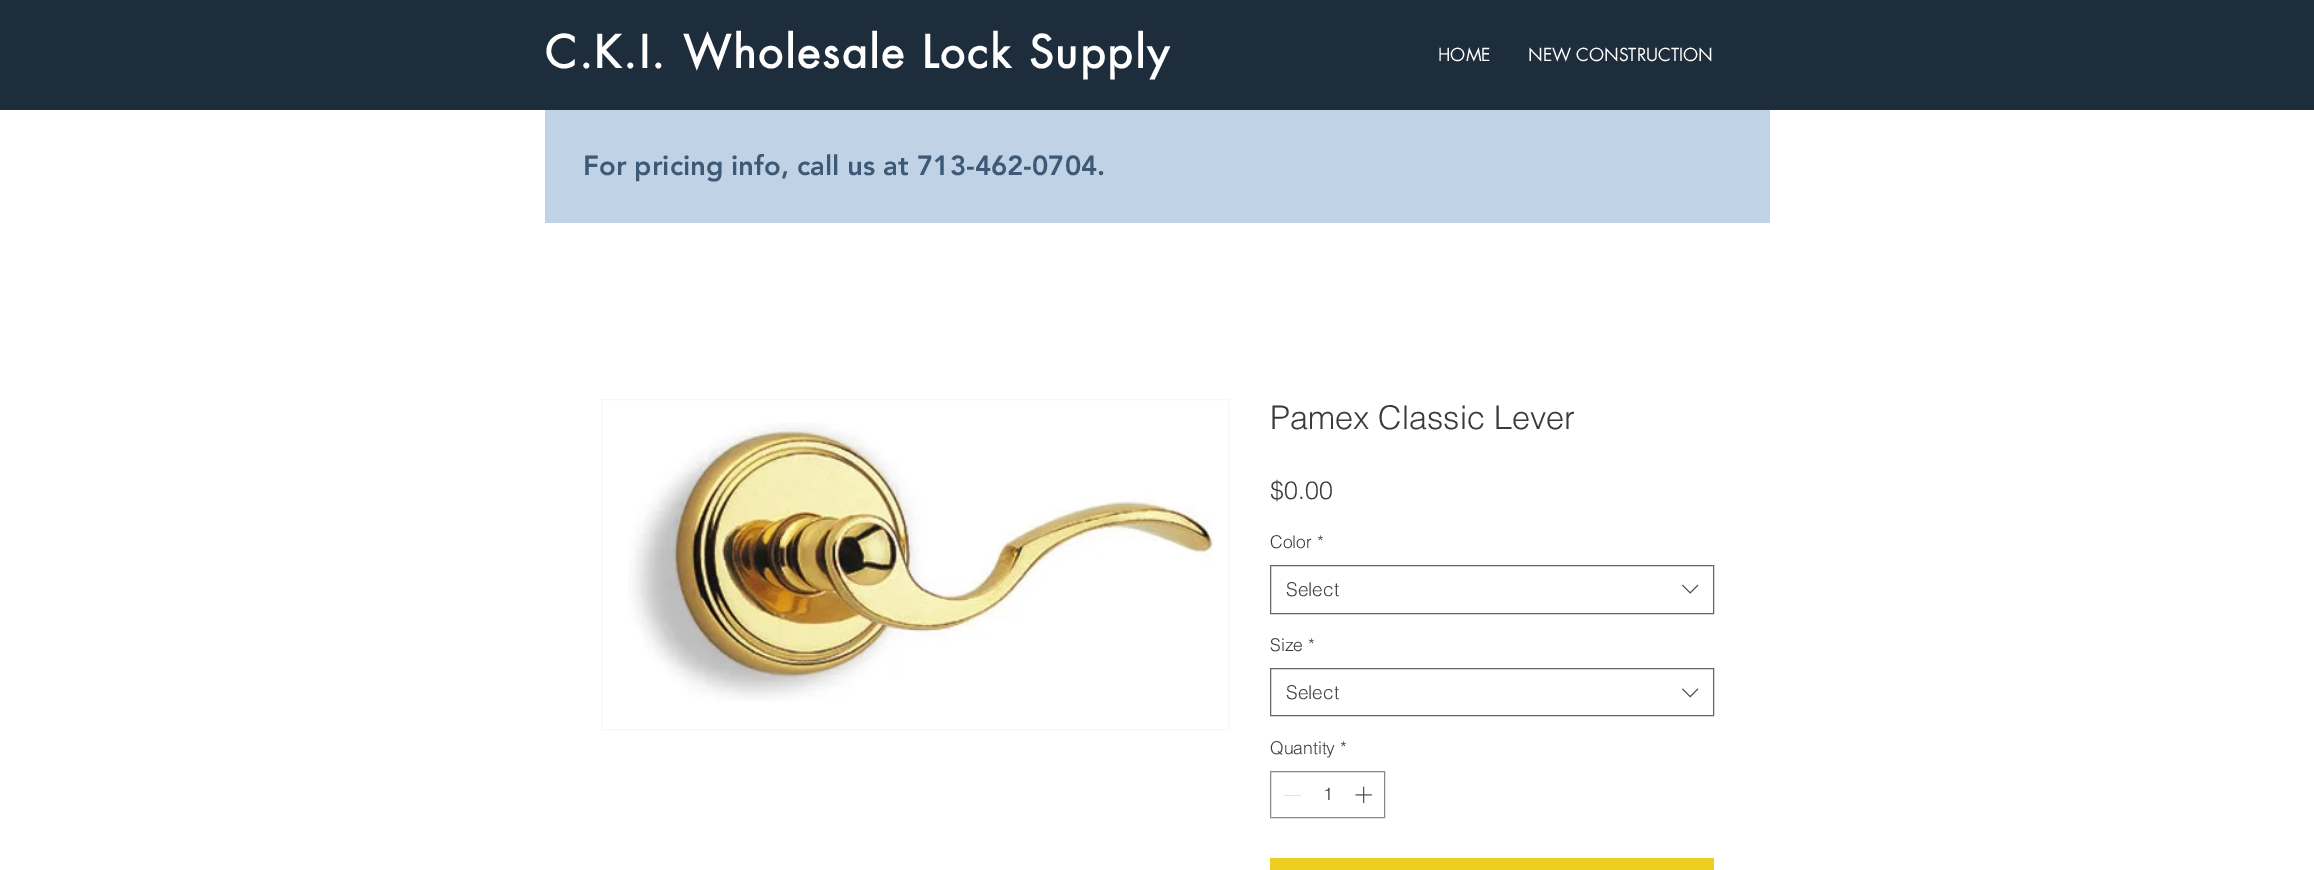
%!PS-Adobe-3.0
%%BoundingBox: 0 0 2314 870
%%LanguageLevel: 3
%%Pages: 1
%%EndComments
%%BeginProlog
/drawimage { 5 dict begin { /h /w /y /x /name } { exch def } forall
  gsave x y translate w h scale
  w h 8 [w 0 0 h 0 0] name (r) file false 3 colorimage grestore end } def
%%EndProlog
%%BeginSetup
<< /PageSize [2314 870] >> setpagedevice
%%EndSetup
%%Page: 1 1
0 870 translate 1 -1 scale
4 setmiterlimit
1 setgray
0 0 2314 870 rectfill
0.118 0.176 0.231 setrgbcolor
0 0 2314 110 rectfill
0.753 0.824 0.898 setrgbcolor
545 110 1225 113 rectfill
0.969 setgray
601.5 399.5 627 330 rectstroke
(images/1.raw) 628 423 586 278 drawimage
0.4 setgray
1270.5 565.5 443 48 rectstroke
(images/2.raw) 1682 584 17 10 drawimage
1270.5 668.5 443 47 rectstroke
(images/3.raw) 1682 688 17 10 drawimage
0.537 setgray
1270.5 771.5 114 46 rectstroke
0.89 setgray
1284 795 17 1 rectfill
(images/4.raw) 1355 786 17 18 drawimage
0.929 0.804 0.122 setrgbcolor
1270 858 444 12 rectfill
/futura-Bold [43.75 0 0 -43.75 0 0] selectfont
1 setgray
545 68 moveto 2.2 0 (C.K.I. Wholesale Lock Supply) ashow
/futura-Regular [17.5 0 0 -17.5 0 0] selectfont
1438 61 moveto (HOME) show
1528 61 moveto (NEW CONSTRUCTION) show
/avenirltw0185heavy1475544-Black [27.5 0 0 -27.5 0 0] selectfont
0.239 0.349 0.459 setrgbcolor
583 175 moveto (For pricing info, call us at 713-462-0704.) show
/helvetica-Light [32.5 0 0 -32.5 0 0] selectfont
0.231 0.227 0.227 setrgbcolor
1270 429 moveto (Pamex Classic Lever) show
/helvetica-Light [25 0 0 -25 0 0] selectfont
1270 499 moveto ($0.00) show
/helvetica-Light [17.5 0 0 -17.5 0 0] selectfont
1270 548 moveto (Color *) show
/helvetica-Light [19 0 0 -19 0 0] selectfont
0.267 setgray
1286 596 moveto (Select) show
/helvetica-Light [17.5 0 0 -17.5 0 0] selectfont
0.231 0.227 0.227 setrgbcolor
1270 651 moveto (Size *) show
/helvetica-Light [19 0 0 -19 0 0] selectfont
0.267 setgray
1286 699 moveto (Select) show
/helvetica-Light [17.5 0 0 -17.5 0 0] selectfont
0.231 0.227 0.227 setrgbcolor
1270 754 moveto (Quantity *) show
1323 800 moveto (1) show
showpage
%%EOF
